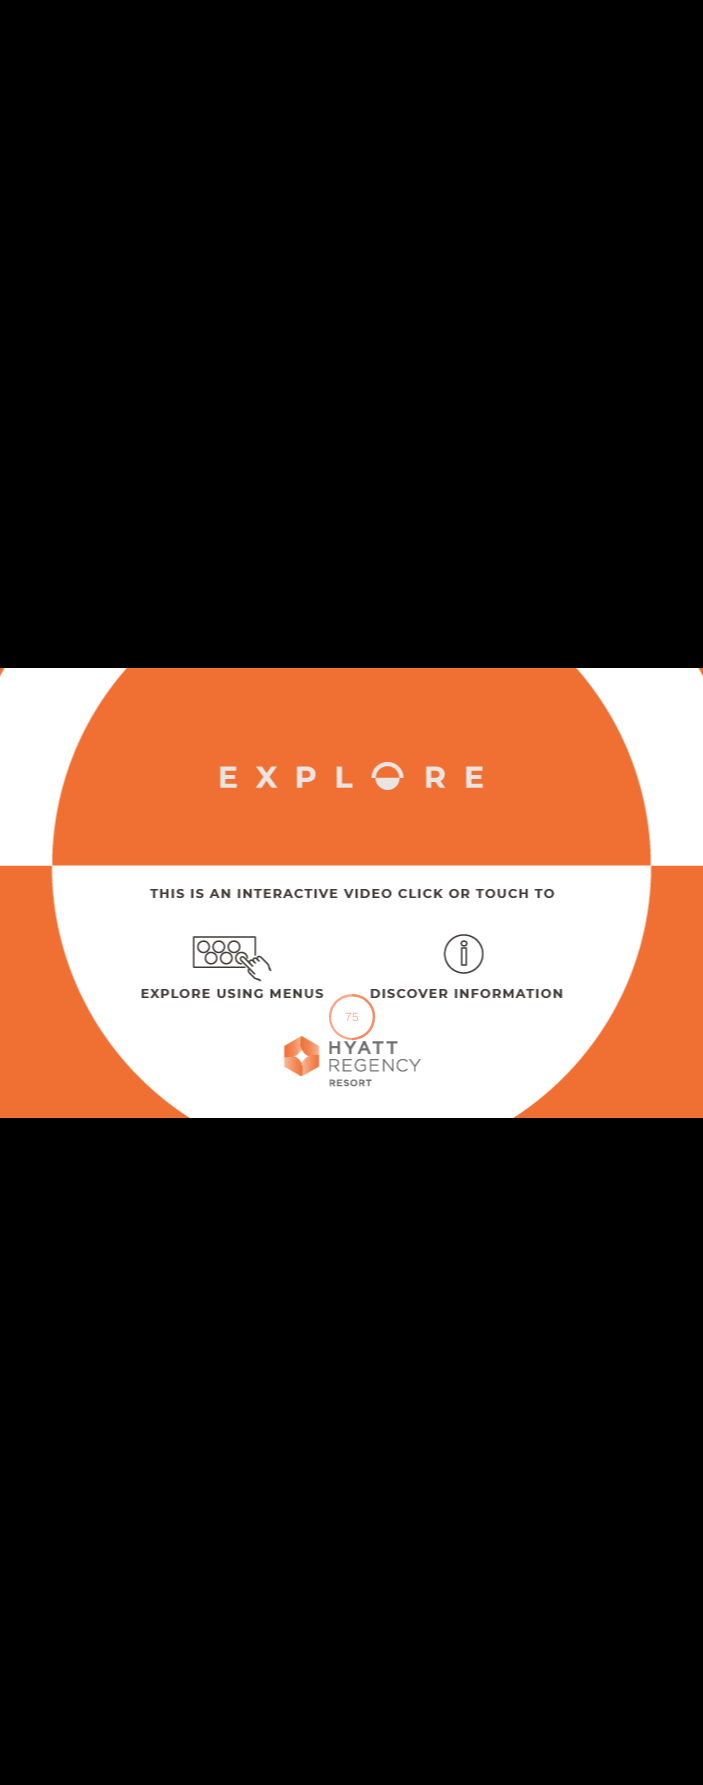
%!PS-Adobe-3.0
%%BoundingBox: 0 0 703 1785
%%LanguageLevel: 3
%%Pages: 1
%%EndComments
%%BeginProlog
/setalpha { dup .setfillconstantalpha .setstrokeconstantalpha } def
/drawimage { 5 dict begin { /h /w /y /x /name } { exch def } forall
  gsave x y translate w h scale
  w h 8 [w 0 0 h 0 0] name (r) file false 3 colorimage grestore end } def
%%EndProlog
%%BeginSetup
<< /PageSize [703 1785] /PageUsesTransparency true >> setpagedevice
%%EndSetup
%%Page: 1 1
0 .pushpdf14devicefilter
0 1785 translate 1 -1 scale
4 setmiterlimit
0 setgray
0 0 703 1785 rectfill
(images/1.raw) 0 668 703 450 drawimage
0.1 setalpha
1 0.4 0.2 setrgbcolor
2 setlinewidth
newpath 352 1017 22 0 360 arc closepath stroke
0.5 setalpha
newpath 330 1017 moveto 330 991 368.5 987 373.5 1012.5 curveto 374.5 1018.5 373.5 1024.5 370 1029.5 curveto 366 1035.5 359 1039 352 1039 curveto stroke
/LiberationSans-Regular [12 0 0 -12 0 0] selectfont
1 setalpha
1 0.702 0.6 setrgbcolor
345 1021 moveto (75) show
.poppdf14devicefilter showpage
%%EOF
